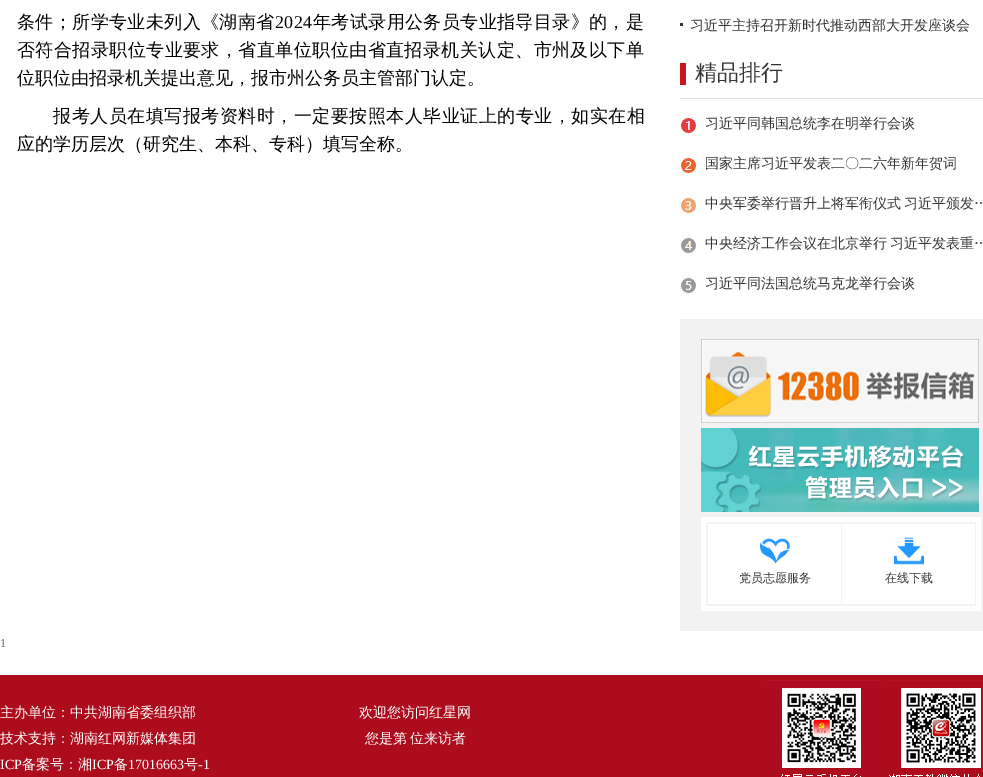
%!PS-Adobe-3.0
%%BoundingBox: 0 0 983 777
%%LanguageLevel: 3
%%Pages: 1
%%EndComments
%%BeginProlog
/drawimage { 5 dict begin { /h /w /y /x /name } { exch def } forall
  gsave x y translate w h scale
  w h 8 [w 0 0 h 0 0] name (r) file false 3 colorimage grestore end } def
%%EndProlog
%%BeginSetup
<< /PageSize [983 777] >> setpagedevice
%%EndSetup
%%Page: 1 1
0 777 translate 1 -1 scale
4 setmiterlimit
1 setgray
0 0 983 777 rectfill
0.2 setgray
680 23 3 3 rectfill
0.867 setgray
680 98 303 1 rectfill
0.796 0.086 0.122 setrgbcolor
680 63 6 22 rectfill
(images/1.raw) 680 112 16 184 drawimage
0.949 setgray
680 319 303 312 rectfill
(images/2.raw) 701 339 278 84 drawimage
(images/3.raw) 701 428 278 84 drawimage
1 setgray
5 setlinewidth
703.5 519.5 275 89 rectstroke
708 524 133 80 rectfill
(images/4.raw) 760 538 30 26 drawimage
842 524 133 80 rectfill
(images/5.raw) 894 537 30 28 drawimage
0.678 0.047 0.114 setrgbcolor
0 675 983 102 rectfill
(images/6.raw) 765 680 115 97 drawimage
(images/7.raw) 885 680 98 97 drawimage
/WenQuanYiZenHei-Medium [18 0 0 -18 0 0] selectfont
0 setgray
17 28 moveto 0.4 0 (条件；所学专业未列入《湖南省) ashow
/LiberationSerif-Regular [18 0 0 -18 0 0] selectfont
275 28 moveto 0.4 0 (2024) ashow
/WenQuanYiZenHei-Medium [18 0 0 -18 0 0] selectfont
313 28 moveto 0.4 0 (年考试录用公务员专业指导目录》的，是) ashow
17 56 moveto 0.45 0 (否符合招录职位专业要求，省直单位职位由省直招录机关认定、市州及以下单) ashow
17 84 moveto (位职位由招录机关提出意见，报市州公务员主管部门认定。) show
53 122 moveto 0.5 0 (报考人员在填写报考资料时，一定要按照本人毕业证上的专业，如实在相) ashow
17 150 moveto (应的学历层次（研究生、本科、专科）填写全称。) show
/WenQuanYiZenHei-Medium [14 0 0 -14 0 0] selectfont
0.2 setgray
690 30 moveto (习近平主持召开新时代推动西部大开发座谈会) show
/WenQuanYiZenHei-Medium [22 0 0 -22 0 0] selectfont
695 80 moveto (精品排行) show
/WenQuanYiZenHei-Medium [14 0 0 -14 0 0] selectfont
705 128 moveto (习近平同韩国总统李在明举行会谈) show
705 168 moveto (国家主席习近平发表二〇二六年新年贺词) show
705 208 moveto -1 0 32 (中央军委举行晋升上将军衔仪式 习近平颁发…) widthshow
705 248 moveto -1 0 32 (中央经济工作会议在北京举行 习近平发表重…) widthshow
705 288 moveto (习近平同法国总统马克龙举行会谈) show
/WenQuanYiZenHei-Medium [12 0 0 -12 0 0] selectfont
739 582 moveto (党员志愿服务) show
885 582 moveto (在线下载) show
/LiberationSerif-Regular [12 0 0 -12 0 0] selectfont
0.4 setgray
0 647 moveto (1) show
/WenQuanYiZenHei-Medium [14 0 0 -14 0 0] selectfont
1 setgray
0 717 moveto (主办单位：中共湖南省委组织部) show
0 743 moveto (技术支持：湖南红网新媒体集团) show
/LiberationSerif-Regular [14 0 0 -14 0 0] selectfont
0 769 moveto (ICP) show
/WenQuanYiZenHei-Medium [14 0 0 -14 0 0] selectfont
22 769 moveto (备案号：湘) show
/LiberationSerif-Regular [14 0 0 -14 0 0] selectfont
92 769 moveto (ICP) show
/WenQuanYiZenHei-Medium [14 0 0 -14 0 0] selectfont
114 769 moveto (备) show
/LiberationSerif-Regular [14 0 0 -14 0 0] selectfont
128 769 moveto (17016663) show
/WenQuanYiZenHei-Medium [14 0 0 -14 0 0] selectfont
184 769 moveto (号) show
/LiberationSerif-Regular [14 0 0 -14 0 0] selectfont
198 769 moveto (-1) show
/WenQuanYiZenHei-Medium [14 0 0 -14 0 0] selectfont
359 717 moveto (欢迎您访问红星网) show
365 743 moveto (您是第) show
410 743 moveto (位来访者) show
showpage
%%EOF
